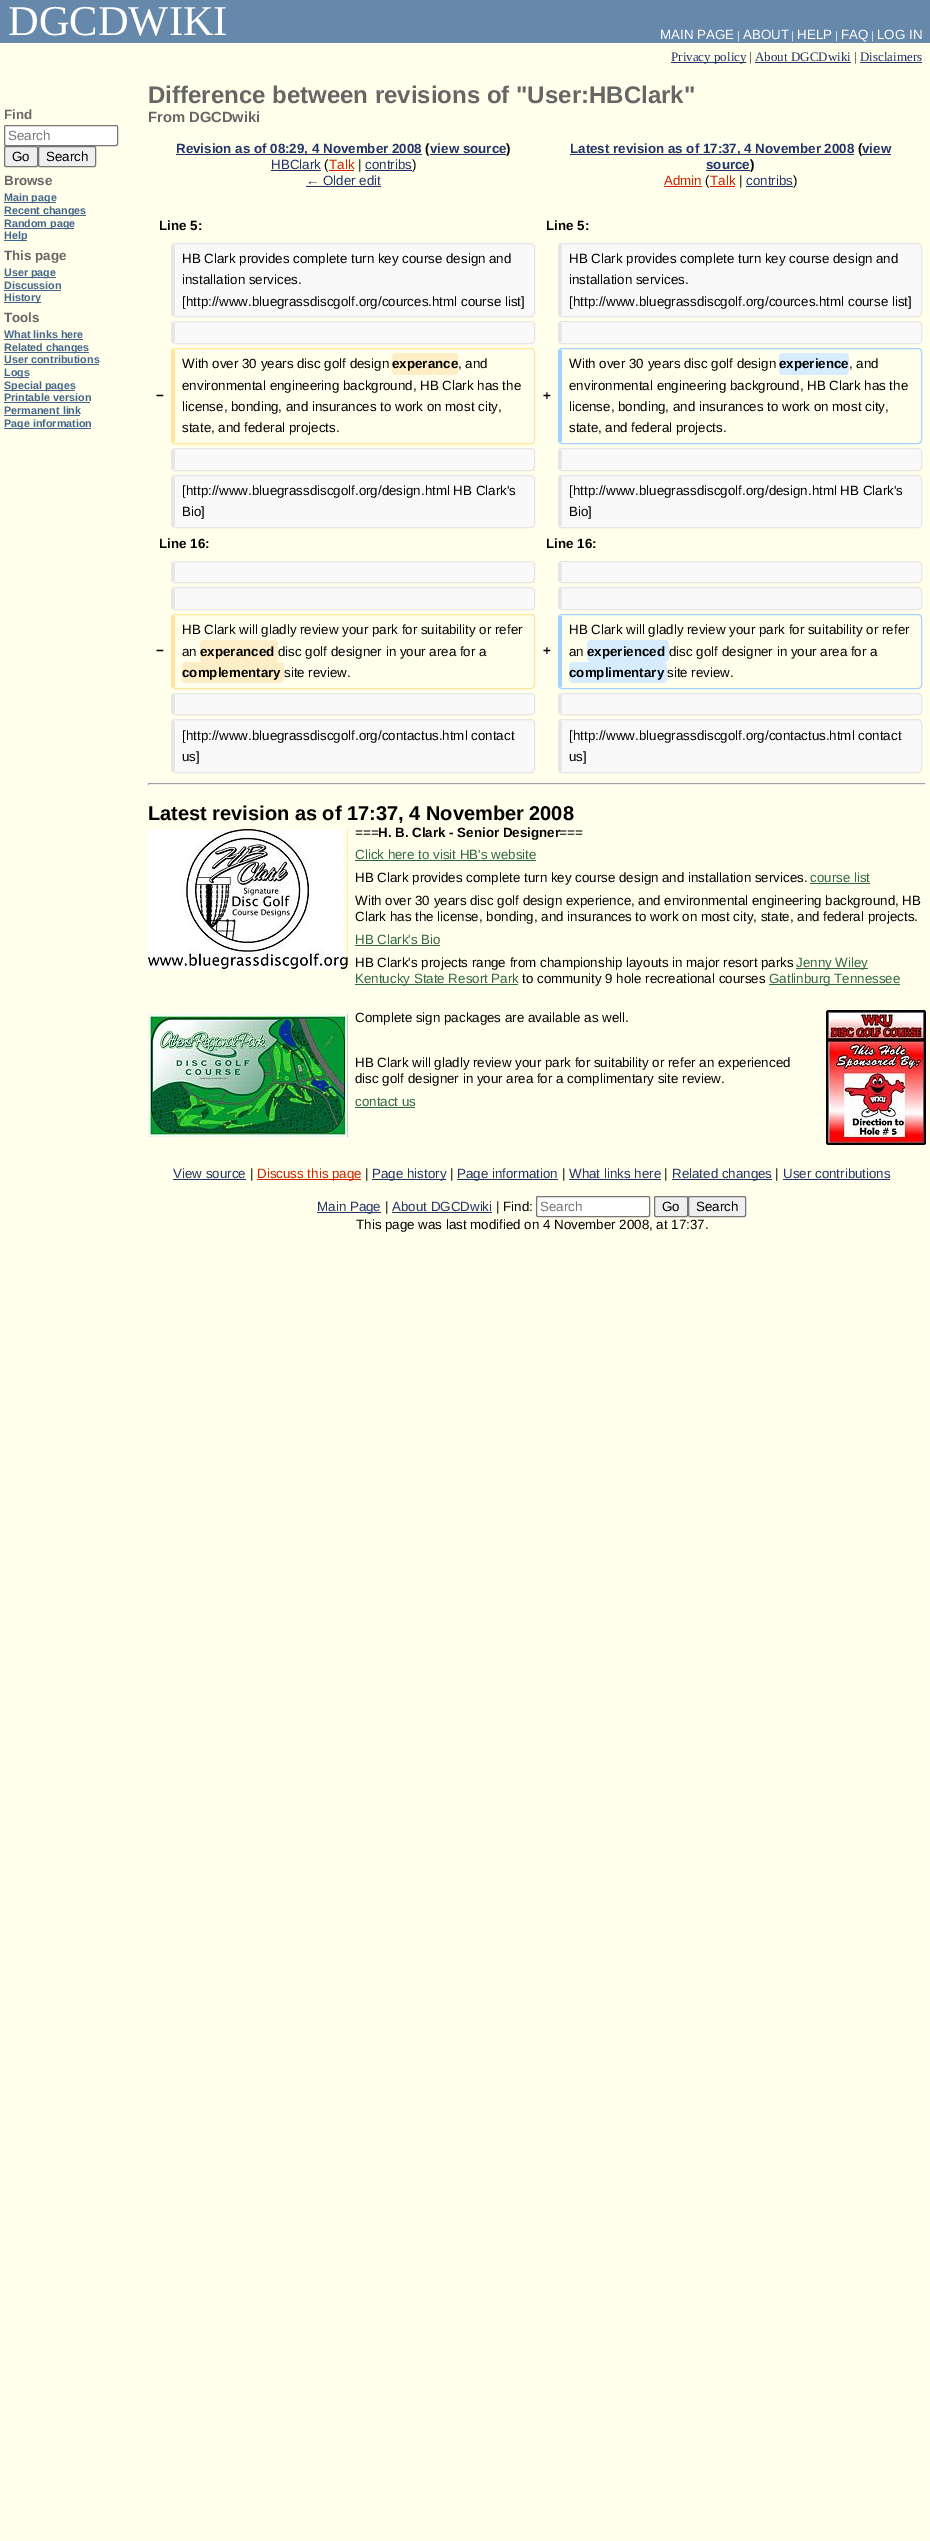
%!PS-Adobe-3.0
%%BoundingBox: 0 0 930 2541
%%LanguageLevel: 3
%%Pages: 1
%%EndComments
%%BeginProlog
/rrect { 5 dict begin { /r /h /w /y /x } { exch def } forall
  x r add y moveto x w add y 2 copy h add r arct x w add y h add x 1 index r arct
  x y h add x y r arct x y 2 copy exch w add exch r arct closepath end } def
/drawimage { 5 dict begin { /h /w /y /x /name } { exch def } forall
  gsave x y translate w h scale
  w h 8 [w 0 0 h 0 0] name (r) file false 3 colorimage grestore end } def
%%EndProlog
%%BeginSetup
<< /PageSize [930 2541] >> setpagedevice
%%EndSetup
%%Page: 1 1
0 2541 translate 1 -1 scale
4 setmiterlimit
1 1 0.925 setrgbcolor
0 0 930 2541 rectfill
0.4 0.533 0.667 setrgbcolor
0 0 930 43 rectfill
0.133 0.2 0.4 setrgbcolor
671 62 75 1 rectfill
755 62 96 1 rectfill
860 62 62 1 rectfill
176 154 246 1 rectfill
430 154 76 1 rectfill
271 170 50 1 rectfill
0.8 0.133 0 setrgbcolor
329 170 25 1 rectfill
0.133 0.2 0.4 setrgbcolor
365 170 47 1 rectfill
306 186 75 1 rectfill
570 154 284 1 rectfill
862 154 29 1 rectfill
706 170 44 1 rectfill
0.8 0.133 0 setrgbcolor
664 186 38 1 rectfill
710 186 25 1 rectfill
0.133 0.2 0.4 setrgbcolor
746 186 47 1 rectfill
0.976 setgray
newpath 175 244 moveto 531 244 lineto 532 244 534 246 534 247 curveto 534 313 lineto 534 314 532 316 531 316 curveto 175 316 lineto 175 313 lineto 175 247 lineto closepath fill
0.902 setgray
171.5 243.5 363 73 3.5 rrect stroke
172 245 3 70 rectfill
0.976 setgray
newpath 562 244 moveto 918 244 lineto 919 244 921 246 921 247 curveto 921 313 lineto 921 314 919 316 918 316 curveto 562 316 lineto 562 313 lineto 562 247 lineto closepath fill
0.902 setgray
558.5 243.5 363 73 3.5 rrect stroke
559 245 3 70 rectfill
0.976 setgray
newpath 175 322 moveto 531 322 lineto 532 322 534 323 534 325 curveto 534 332 lineto 534 335 536 343 531 343 curveto 175 343 lineto 175 340 lineto closepath fill
0.902 setgray
171.5 321.5 363 22 3.5 rrect stroke
172 323 3 19 rectfill
0.976 setgray
newpath 562 322 moveto 918 322 lineto 919 322 921 323 921 325 curveto 921 332 lineto 921 335 923 343 918 343 curveto 562 343 lineto 562 340 lineto closepath fill
0.902 setgray
558.5 321.5 363 22 3.5 rrect stroke
559 323 3 19 rectfill
1 0.894 0.612 setrgbcolor
171.5 348.5 363 95 3.5 rrect stroke
172 350 3 92 rectfill
0.996 0.933 0.784 setrgbcolor
392 353 66 22 4 rrect fill
0.639 0.827 1 setrgbcolor
558.5 348.5 363 95 3.5 rrect stroke
559 350 3 92 rectfill
0.847 0.925 1 setrgbcolor
779 353 70 22 4 rrect fill
0.976 setgray
newpath 175 449 moveto 531 449 lineto 532 449 534 450 534 452 curveto 534 460 lineto 534 462 536 470 531 470 curveto 175 470 lineto 175 467 lineto closepath fill
0.902 setgray
171.5 448.5 363 22 3.5 rrect stroke
172 450 3 19 rectfill
0.976 setgray
newpath 562 449 moveto 918 449 lineto 919 449 921 450 921 452 curveto 921 460 lineto 921 462 923 470 918 470 curveto 562 470 lineto 562 467 lineto closepath fill
0.902 setgray
558.5 448.5 363 22 3.5 rrect stroke
559 450 3 19 rectfill
0.976 setgray
newpath 175 476 moveto 531 476 lineto 532 476 534 478 534 479 curveto 534 516 lineto 534 518 536 527 531 527 curveto 175 527 lineto 175 525 lineto 175 479 lineto closepath fill
0.902 setgray
171.5 475.5 363 52 3.5 rrect stroke
172 477 3 49 rectfill
0.976 setgray
newpath 562 476 moveto 918 476 lineto 919 476 921 478 921 479 curveto 921 516 lineto 921 518 923 527 918 527 curveto 562 527 lineto 562 525 lineto 562 479 lineto closepath fill
0.902 setgray
558.5 475.5 363 52 3.5 rrect stroke
559 477 3 49 rectfill
0.976 setgray
newpath 175 562 moveto 531 562 lineto 532 562 534 564 534 565 curveto 534 579 lineto 534 580 532 582 531 582 curveto 175 582 lineto 175 579 lineto closepath fill
0.902 setgray
171.5 561.5 363 21 3.5 rrect stroke
172 563 3 18 rectfill
0.976 setgray
newpath 562 562 moveto 918 562 lineto 919 562 921 564 921 565 curveto 921 579 lineto 921 580 919 582 918 582 curveto 562 582 lineto 562 579 lineto closepath fill
0.902 setgray
558.5 561.5 363 21 3.5 rrect stroke
559 563 3 18 rectfill
0.976 setgray
newpath 175 588 moveto 531 588 lineto 532 588 534 589 534 591 curveto 534 598 lineto 534 601 536 609 531 609 curveto 175 609 lineto 175 606 lineto closepath fill
0.902 setgray
171.5 587.5 363 22 3.5 rrect stroke
172 589 3 19 rectfill
0.976 setgray
newpath 562 588 moveto 918 588 lineto 919 588 921 589 921 591 curveto 921 598 lineto 921 601 923 609 918 609 curveto 562 609 lineto 562 606 lineto closepath fill
0.902 setgray
558.5 587.5 363 22 3.5 rrect stroke
559 589 3 19 rectfill
1 0.894 0.612 setrgbcolor
171.5 614.5 363 74 3.5 rrect stroke
172 616 3 71 rectfill
0.996 0.933 0.784 setrgbcolor
200 640 78 22 4 rrect fill
182 662 102 21 4 rrect fill
0.639 0.827 1 setrgbcolor
558.5 614.5 363 74 3.5 rrect stroke
559 616 3 71 rectfill
0.847 0.925 1 setrgbcolor
587 640 82 22 4 rrect fill
569 662 98 21 4 rrect fill
0.976 setgray
newpath 175 694 moveto 531 694 lineto 532 694 534 696 534 697 curveto 534 711 lineto 534 712 532 714 531 714 curveto 175 714 lineto 175 711 lineto closepath fill
0.902 setgray
171.5 693.5 363 21 3.5 rrect stroke
172 695 3 18 rectfill
0.976 setgray
newpath 562 694 moveto 918 694 lineto 919 694 921 696 921 697 curveto 921 711 lineto 921 712 919 714 918 714 curveto 562 714 lineto 562 711 lineto closepath fill
0.902 setgray
558.5 693.5 363 21 3.5 rrect stroke
559 695 3 18 rectfill
0.976 setgray
newpath 175 720 moveto 531 720 lineto 532 720 534 722 534 723 curveto 534 769 lineto 534 770 532 772 531 772 curveto 175 772 lineto 175 769 lineto 175 723 lineto closepath fill
0.902 setgray
171.5 719.5 363 53 3.5 rrect stroke
172 721 3 50 rectfill
0.976 setgray
newpath 562 720 moveto 918 720 lineto 919 720 921 722 921 723 curveto 921 769 lineto 921 770 919 772 918 772 curveto 562 772 lineto 562 769 lineto 562 723 lineto closepath fill
0.902 setgray
558.5 719.5 363 53 3.5 rrect stroke
559 721 3 50 rectfill
0.624 setgray
148 783 778 1 rectfill
0.933 setgray
925 783 1 2 rectfill
148 784 778 1 rectfill
0.624 setgray
148 783 1 2 rectfill
(images/1.raw) 148 829 200 140 drawimage
0.2 0.4 0.267 setrgbcolor
355 860 181 1 rectfill
810 883 60 1 rectfill
355 945 85 1 rectfill
796 968 72 1 rectfill
355 984 163 1 rectfill
769 984 131 1 rectfill
(images/2.raw) 148 1014 200 123 drawimage
(images/3.raw) 826 1010 100 135 drawimage
355 1107 60 1 rectfill
0.133 0.2 0.4 setrgbcolor
173 1179 73 1 rectfill
0.8 0.133 0 setrgbcolor
257 1179 104 1 rectfill
0.133 0.2 0.4 setrgbcolor
372 1179 74 1 rectfill
457 1179 101 1 rectfill
569 1179 92 1 rectfill
672 1179 100 1 rectfill
783 1179 107 1 rectfill
317 1212 64 1 rectfill
392 1212 100 1 rectfill
1 setgray
536.5 1196.5 113 20 1.5 rrect gsave fill grestore
0.463 setgray
stroke
0.937 setgray
654.5 1196.5 33 20 1.5 rrect gsave fill grestore
0.463 setgray
stroke
0.937 setgray
688.5 1196.5 57 20 1.5 rrect gsave fill grestore
0.463 setgray
stroke
1 setgray
4.5 125.5 113 20 1.5 rrect gsave fill grestore
0.463 setgray
stroke
0.937 setgray
4.5 146.5 33 20 1.5 rrect gsave fill grestore
0.463 setgray
stroke
0.937 setgray
38.5 146.5 57 20 1.5 rrect gsave fill grestore
0.463 setgray
stroke
0.267 0.4 0.533 setrgbcolor
4 202 52 1 rectfill
4 215 82 1 rectfill
4 228 70 1 rectfill
4 240 23 1 rectfill
4 277 52 1 rectfill
4 290 57 1 rectfill
4 302 37 1 rectfill
4 339 79 1 rectfill
4 352 85 1 rectfill
4 364 95 1 rectfill
4 377 25 1 rectfill
4 390 71 1 rectfill
4 402 86 1 rectfill
4 415 76 1 rectfill
4 428 87 1 rectfill
/LiberationSerif-Regular [42.5 0 0 -42.5 0 0] selectfont
1 setgray
8 35 moveto (DGCDWIKI) show
/LiberationSerif-Regular [13 0 0 -13 0 0] selectfont
0.133 0.2 0.4 setrgbcolor
671 61 moveto (Privacy policy) show
0 setgray
749 61 moveto (|) show
0.133 0.2 0.4 setrgbcolor
755 61 moveto (About DGCDwiki) show
0 setgray
854 61 moveto (|) show
0.133 0.2 0.4 setrgbcolor
860 61 moveto (Disclaimers) show
/LiberationSans-Bold [24 0 0 -24 0 0] selectfont
0.4 setgray
148 103 moveto (Difference between revisions of "User:HBClark") show
/LiberationSans-Bold [14.75 0 0 -14.75 0 0] selectfont
148 122 moveto (From DGCDwiki) show
/LiberationSans-Bold [13.35 0 0 -13.35 0 0] selectfont
0.133 0.2 0.4 setrgbcolor
176 153 moveto (Revision as of 08:29, 4 November 2008) show
0 setgray
425 153 moveto (\() show
0.133 0.2 0.4 setrgbcolor
430 153 moveto (view source) show
0 setgray
506 153 moveto (\)) show
/LiberationSans-Regular [13.35 0 0 -13.35 0 0] selectfont
0.133 0.2 0.4 setrgbcolor
271 169 moveto (HBClark) show
0 setgray
324 169 moveto (\() show
0.8 0.133 0 setrgbcolor
329 169 moveto (Talk) show
0 setgray
358 169 moveto (|) show
0.133 0.2 0.4 setrgbcolor
365 169 moveto (contribs) show
0 setgray
412 169 moveto (\)) show
0.133 0.2 0.4 setrgbcolor
306 185 moveto (← Older edit) show
/LiberationSans-Bold [13.35 0 0 -13.35 0 0] selectfont
570 153 moveto (Latest revision as of 17:37, 4 November 2008) show
0 setgray
858 153 moveto (\() show
0.133 0.2 0.4 setrgbcolor
862 153 moveto (view) show
706 169 moveto (source) show
0 setgray
750 169 moveto (\)) show
/LiberationSans-Regular [13.35 0 0 -13.35 0 0] selectfont
0.8 0.133 0 setrgbcolor
664 185 moveto (Admin) show
0 setgray
705 185 moveto (\() show
0.8 0.133 0 setrgbcolor
710 185 moveto (Talk) show
0 setgray
739 185 moveto (|) show
0.133 0.2 0.4 setrgbcolor
746 185 moveto (contribs) show
0 setgray
793 185 moveto (\)) show
/LiberationSans-Bold [13.35 0 0 -13.35 0 0] selectfont
159 230 moveto (Line 5:) show
546 230 moveto (Line 5:) show
/LiberationSans-Regular [13.35 0 0 -13.35 0 0] selectfont
182 263 moveto (HB Clark provides complete turn key course design and) show
182 284 moveto (installation services.) show
182 306 moveto ([http://www.bluegrassdiscgolf.org/cources.html course list]) show
569 263 moveto (HB Clark provides complete turn key course design and) show
569 284 moveto (installation services.) show
569 306 moveto ([http://www.bluegrassdiscgolf.org/cources.html course list]) show
/LiberationSans-Bold [13.35 0 0 -13.35 0 0] selectfont
156 400 moveto (−) show
/LiberationSans-Regular [13.35 0 0 -13.35 0 0] selectfont
182 368 moveto (With over 30 years disc golf design) show
/LiberationSans-Bold [13.35 0 0 -13.35 0 0] selectfont
392 368 moveto (experance) show
/LiberationSans-Regular [13.35 0 0 -13.35 0 0] selectfont
458 368 moveto (, and) show
182 390 moveto (environmental engineering background, HB Clark has the) show
182 411 moveto (license, bonding, and insurances to work on most city,) show
182 432 moveto (state, and federal projects.) show
/LiberationSans-Bold [13.35 0 0 -13.35 0 0] selectfont
543 400 moveto (+) show
/LiberationSans-Regular [13.35 0 0 -13.35 0 0] selectfont
569 368 moveto (With over 30 years disc golf design) show
/LiberationSans-Bold [13.35 0 0 -13.35 0 0] selectfont
779 368 moveto (experience) show
/LiberationSans-Regular [13.35 0 0 -13.35 0 0] selectfont
849 368 moveto (, and) show
569 390 moveto (environmental engineering background, HB Clark has the) show
569 411 moveto (license, bonding, and insurances to work on most city,) show
569 432 moveto (state, and federal projects.) show
182 495 moveto ([http://www.bluegrassdiscgolf.org/design.html HB Clark's) show
182 516 moveto (Bio]) show
569 495 moveto ([http://www.bluegrassdiscgolf.org/design.html HB Clark's) show
569 516 moveto (Bio]) show
/LiberationSans-Bold [13.35 0 0 -13.35 0 0] selectfont
159 548 moveto (Line 16:) show
546 548 moveto (Line 16:) show
156 655 moveto (−) show
/LiberationSans-Regular [13.35 0 0 -13.35 0 0] selectfont
182 634 moveto (HB Clark will gladly review your park for suitability or refer) show
182 656 moveto (an) show
/LiberationSans-Bold [13.35 0 0 -13.35 0 0] selectfont
200 656 moveto (experanced) show
/LiberationSans-Regular [13.35 0 0 -13.35 0 0] selectfont
278 656 moveto (disc golf designer in your area for a) show
/LiberationSans-Bold [13.35 0 0 -13.35 0 0] selectfont
182 677 moveto (complementary) show
/LiberationSans-Regular [13.35 0 0 -13.35 0 0] selectfont
284 677 moveto (site review.) show
/LiberationSans-Bold [13.35 0 0 -13.35 0 0] selectfont
543 655 moveto (+) show
/LiberationSans-Regular [13.35 0 0 -13.35 0 0] selectfont
569 634 moveto (HB Clark will gladly review your park for suitability or refer) show
569 656 moveto (an) show
/LiberationSans-Bold [13.35 0 0 -13.35 0 0] selectfont
587 656 moveto (experienced) show
/LiberationSans-Regular [13.35 0 0 -13.35 0 0] selectfont
669 656 moveto (disc golf designer in your area for a) show
/LiberationSans-Bold [13.35 0 0 -13.35 0 0] selectfont
569 677 moveto (complimentary) show
/LiberationSans-Regular [13.35 0 0 -13.35 0 0] selectfont
667 677 moveto (site review.) show
182 740 moveto ([http://www.bluegrassdiscgolf.org/contactus.html contact) show
182 761 moveto (us]) show
569 740 moveto ([http://www.bluegrassdiscgolf.org/contactus.html contact) show
569 761 moveto (us]) show
/LiberationSans-Bold [20 0 0 -20 0 0] selectfont
148 820 moveto (Latest revision as of 17:37, 4 November 2008) show
/LiberationSans-Regular [13.35 0 0 -13.35 0 0] selectfont
355 837 moveto (===) show
/LiberationSans-Bold [13.35 0 0 -13.35 0 0] selectfont
378 837 moveto (H. B. Clark - Senior Designer) show
/LiberationSans-Regular [13.35 0 0 -13.35 0 0] selectfont
559 837 moveto (===) show
0.2 0.4 0.267 setrgbcolor
355 859 moveto (Click here to visit HB's website) show
0 setgray
355 882 moveto (HB Clark provides complete turn key course design and installation services.) show
0.2 0.4 0.267 setrgbcolor
810 882 moveto (course list) show
0 setgray
355 905 moveto (With over 30 years disc golf design experience, and environmental engineering background, HB) show
355 921 moveto (Clark has the license, bonding, and insurances to work on most city, state, and federal projects.) show
0.2 0.4 0.267 setrgbcolor
355 944 moveto (HB Clark's Bio) show
0 setgray
355 967 moveto (HB Clark's projects range from championship layouts in major resort parks) show
0.2 0.4 0.267 setrgbcolor
796 967 moveto (Jenny Wiley) show
355 983 moveto (Kentucky State Resort Park) show
0 setgray
522 983 moveto (to community 9 hole recreational courses) show
0.2 0.4 0.267 setrgbcolor
769 983 moveto (Gatlinburg Tennessee) show
0 setgray
355 1022 moveto (Complete sign packages are available as well.) show
355 1067 moveto (HB Clark will gladly review your park for suitability or refer an experienced) show
355 1083 moveto (disc golf designer in your area for a complimentary site review.) show
0.2 0.4 0.267 setrgbcolor
355 1106 moveto (contact us) show
0.133 0.2 0.4 setrgbcolor
173 1178 moveto (View source) show
0 setgray
250 1178 moveto (|) show
0.8 0.133 0 setrgbcolor
257 1178 moveto (Discuss this page) show
0 setgray
365 1178 moveto (|) show
0.133 0.2 0.4 setrgbcolor
372 1178 moveto (Page history) show
0 setgray
450 1178 moveto (|) show
0.133 0.2 0.4 setrgbcolor
457 1178 moveto (Page information) show
0 setgray
562 1178 moveto (|) show
0.133 0.2 0.4 setrgbcolor
569 1178 moveto (What links here) show
0 setgray
664 1178 moveto (|) show
0.133 0.2 0.4 setrgbcolor
672 1178 moveto (Related changes) show
0 setgray
775 1178 moveto (|) show
0.133 0.2 0.4 setrgbcolor
783 1178 moveto (User contributions) show
317 1211 moveto (Main Page) show
0 setgray
385 1211 moveto (|) show
0.133 0.2 0.4 setrgbcolor
392 1211 moveto (About DGCDwiki) show
0 setgray
496 1211 moveto (| Find:) show
0.459 setgray
540 1211 moveto (Search) show
0 setgray
662 1211 moveto (Go) show
696 1211 moveto (Search) show
356 1229 moveto (This page was last modified on 4 November 2008, at 17:37.) show
1 setgray
660 39 moveto (MAIN PAGE) show
/LiberationSans-Regular [10.75 0 0 -10.75 0 0] selectfont
737 39 moveto (|) show
/LiberationSans-Regular [13.35 0 0 -13.35 0 0] selectfont
743 39 moveto (ABOUT) show
/LiberationSans-Regular [10.75 0 0 -10.75 0 0] selectfont
791 39 moveto (|) show
/LiberationSans-Regular [13.35 0 0 -13.35 0 0] selectfont
797 39 moveto (HELP) show
/LiberationSans-Regular [10.75 0 0 -10.75 0 0] selectfont
835 39 moveto (|) show
/LiberationSans-Regular [13.35 0 0 -13.35 0 0] selectfont
841 39 moveto (FAQ) show
/LiberationSans-Regular [10.75 0 0 -10.75 0 0] selectfont
871 39 moveto (|) show
/LiberationSans-Regular [13.35 0 0 -13.35 0 0] selectfont
877 39 moveto (LOG IN) show
/LiberationSans-Bold [13.35 0 0 -13.35 0 0] selectfont
0.4 setgray
4 119 moveto (Find) show
/LiberationSans-Regular [13.35 0 0 -13.35 0 0] selectfont
0.459 setgray
8 140 moveto (Search) show
0 setgray
12 161 moveto (Go) show
46 161 moveto (Search) show
/LiberationSans-Bold [13.35 0 0 -13.35 0 0] selectfont
0.4 setgray
4 185 moveto (Browse) show
/LiberationSans-Bold [10.75 0 0 -10.75 0 0] selectfont
0.267 0.4 0.533 setrgbcolor
4 201 moveto (Main page) show
4 214 moveto (Recent changes) show
4 227 moveto (Random page) show
4 239 moveto (Help) show
/LiberationSans-Bold [13.35 0 0 -13.35 0 0] selectfont
0.4 setgray
4 260 moveto (This page) show
/LiberationSans-Bold [10.75 0 0 -10.75 0 0] selectfont
0.267 0.4 0.533 setrgbcolor
4 276 moveto (User page) show
4 289 moveto (Discussion) show
4 301 moveto (History) show
/LiberationSans-Bold [13.35 0 0 -13.35 0 0] selectfont
0.4 setgray
4 322 moveto (Tools) show
/LiberationSans-Bold [10.75 0 0 -10.75 0 0] selectfont
0.267 0.4 0.533 setrgbcolor
4 338 moveto (What links here) show
4 351 moveto (Related changes) show
4 363 moveto (User contributions) show
4 376 moveto (Logs) show
4 389 moveto (Special pages) show
4 401 moveto (Printable version) show
4 414 moveto (Permanent link) show
4 427 moveto (Page information) show
showpage
%%EOF
